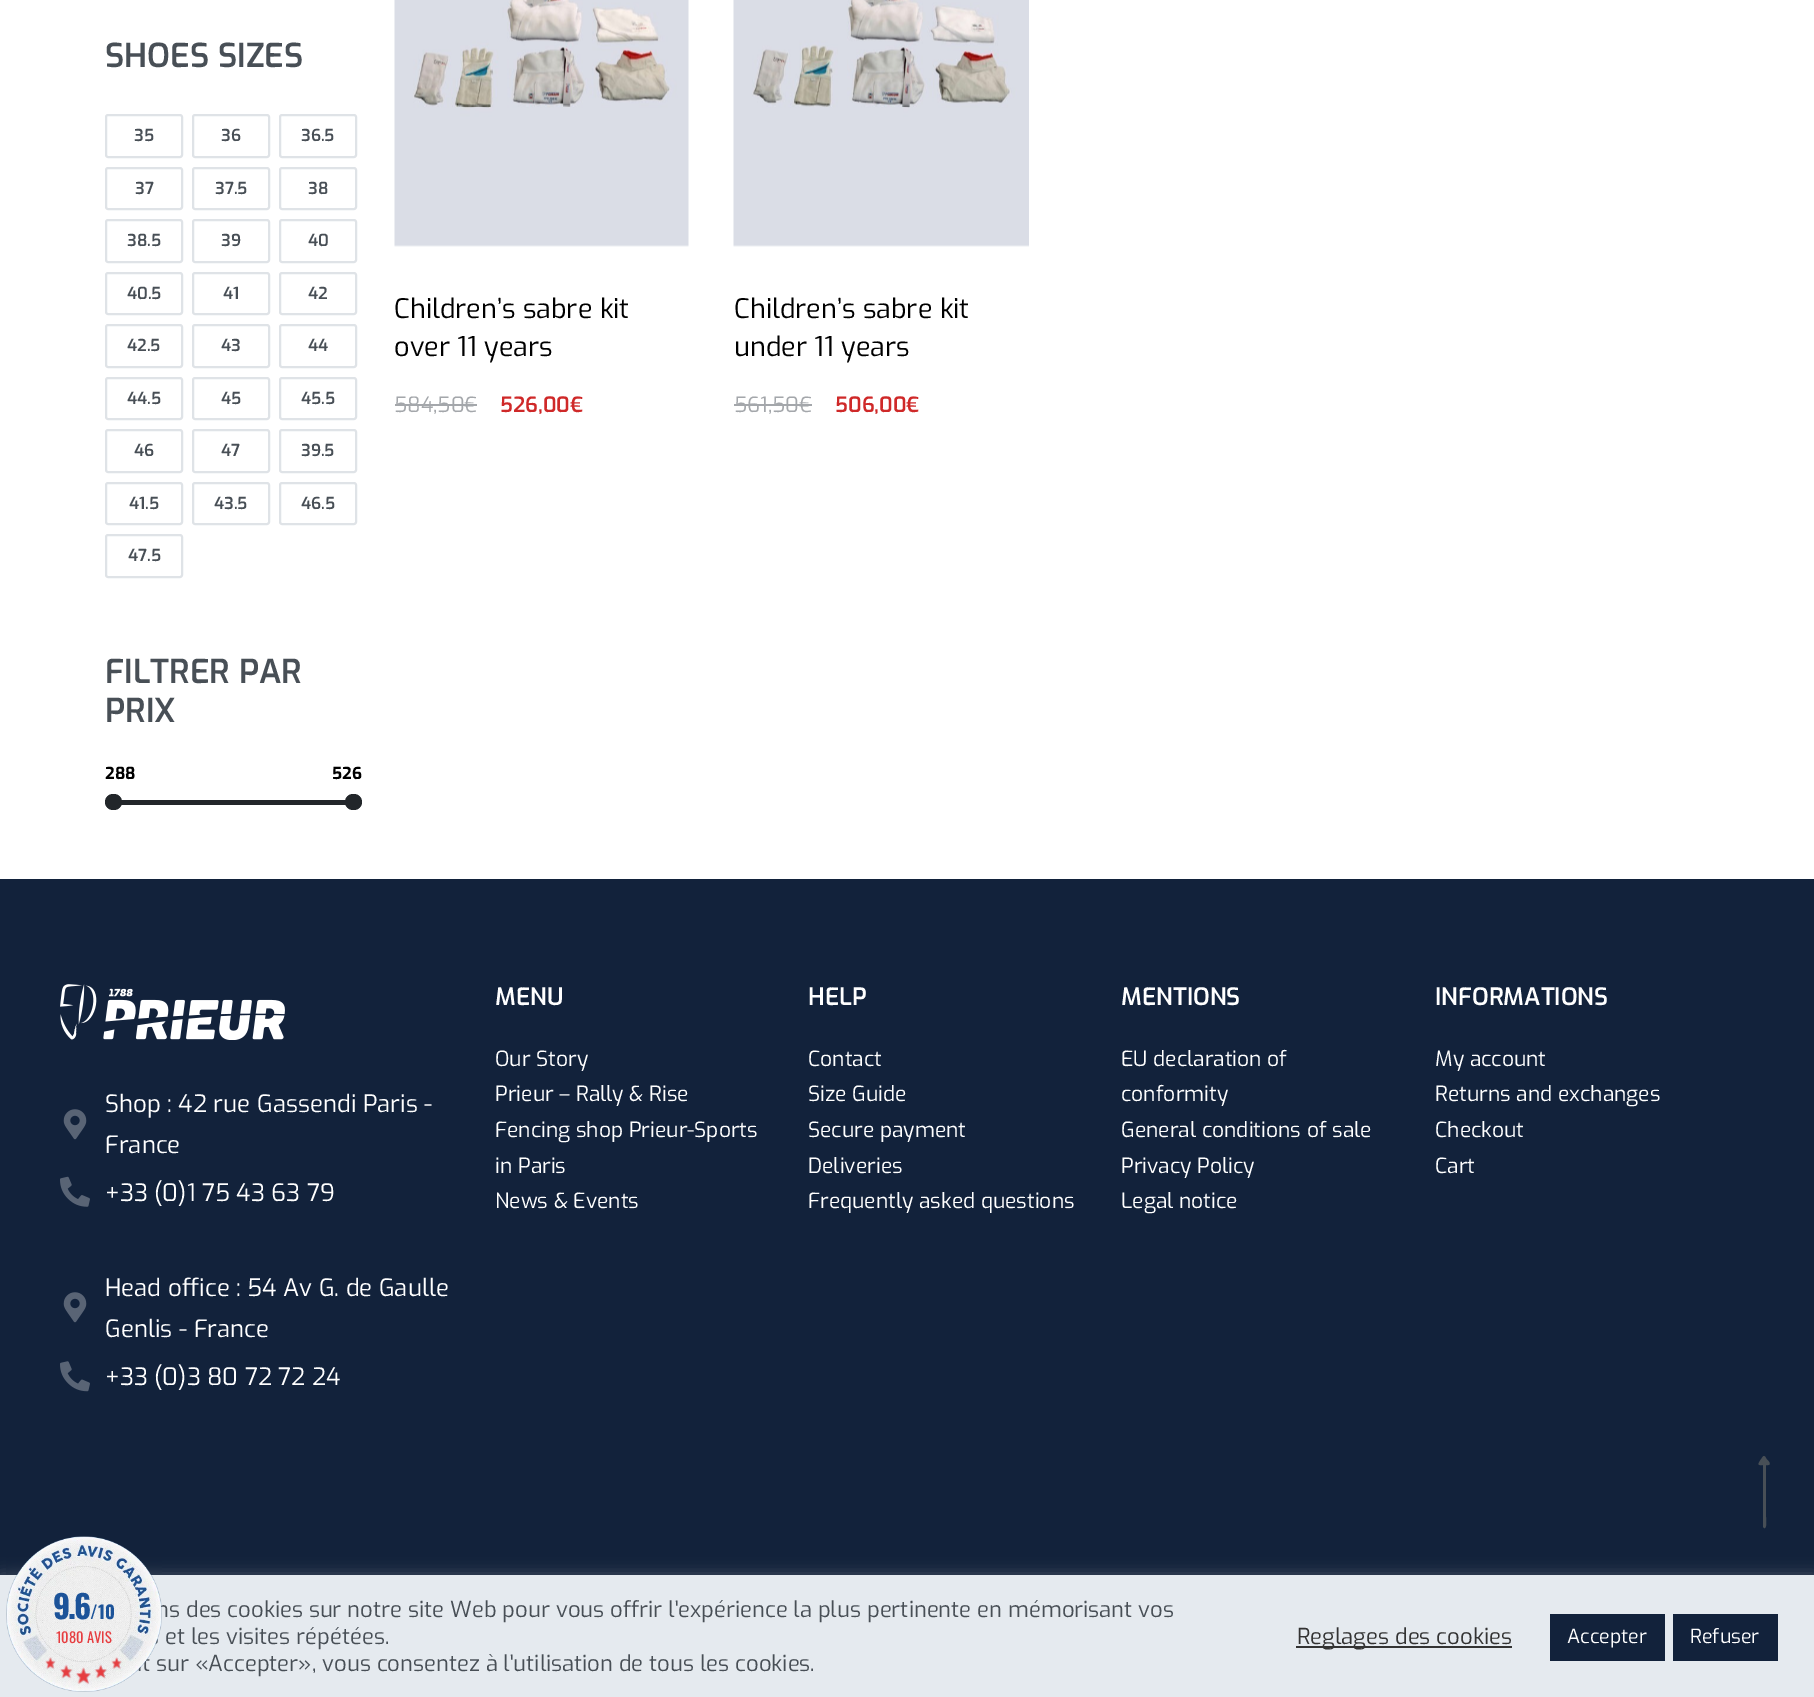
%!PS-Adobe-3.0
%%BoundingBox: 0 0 1814 1697
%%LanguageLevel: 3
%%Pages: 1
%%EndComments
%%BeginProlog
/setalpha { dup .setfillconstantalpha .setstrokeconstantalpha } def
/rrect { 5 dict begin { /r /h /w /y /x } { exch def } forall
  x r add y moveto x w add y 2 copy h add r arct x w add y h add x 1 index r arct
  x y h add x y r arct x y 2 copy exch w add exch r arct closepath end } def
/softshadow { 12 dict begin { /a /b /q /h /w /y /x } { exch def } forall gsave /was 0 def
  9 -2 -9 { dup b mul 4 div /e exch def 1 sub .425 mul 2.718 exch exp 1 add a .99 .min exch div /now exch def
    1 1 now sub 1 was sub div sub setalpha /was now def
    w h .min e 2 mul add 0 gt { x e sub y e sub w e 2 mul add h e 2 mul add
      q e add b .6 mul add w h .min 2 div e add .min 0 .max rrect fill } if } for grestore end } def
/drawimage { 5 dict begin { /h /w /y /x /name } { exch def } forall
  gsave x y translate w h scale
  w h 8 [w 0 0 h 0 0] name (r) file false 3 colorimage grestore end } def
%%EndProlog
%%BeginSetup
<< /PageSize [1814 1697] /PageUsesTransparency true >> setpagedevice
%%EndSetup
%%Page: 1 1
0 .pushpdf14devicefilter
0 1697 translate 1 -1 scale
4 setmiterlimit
1 setgray
0 0 1814 1697 rectfill
0.875 0.89 0.906 setrgbcolor
2 setlinewidth
106 115 76 42 2 rrect stroke
193 115 76 42 2 rrect stroke
280 115 76 42 2 rrect stroke
106 168 76 41 2 rrect stroke
193 168 76 41 2 rrect stroke
280 168 76 41 2 rrect stroke
106 220 76 42 2 rrect stroke
193 220 76 42 2 rrect stroke
280 220 76 42 2 rrect stroke
106 273 76 41 2 rrect stroke
193 273 76 41 2 rrect stroke
280 273 76 41 2 rrect stroke
106 325 76 42 2 rrect stroke
193 325 76 42 2 rrect stroke
280 325 76 42 2 rrect stroke
106 378 76 41 2 rrect stroke
193 378 76 41 2 rrect stroke
280 378 76 41 2 rrect stroke
106 430 76 42 2 rrect stroke
193 430 76 42 2 rrect stroke
280 430 76 42 2 rrect stroke
106 483 76 41 2 rrect stroke
193 483 76 41 2 rrect stroke
280 483 76 41 2 rrect stroke
106 535 76 42 2 rrect stroke
0.133 0.149 0.165 setrgbcolor
105 800 257 5 2.5 rrect fill
105 794 17 16 8 rrect fill
345 794 17 16 8 rrect fill
(images/1.raw) 394 0 295 247 drawimage
0.643 0.655 0.671 setrgbcolor
395 404 70 2 rectfill
465 404 12 2 rectfill
(images/2.raw) 733 0 296 247 drawimage
734 404 66 2 rectfill
800 404 12 2 rectfill
0.071 0.133 0.231 setrgbcolor
0 879 1814 696 rectfill
(images/3.raw) 60 984 225 56 drawimage
(images/4.raw) 63 1109 24 31 drawimage
(images/5.raw) 60 1176 30 31 drawimage
(images/4.raw) 63 1292 24 31 drawimage
(images/6.raw) 60 1361 30 31 drawimage
0.282 0.31 0.337 setrgbcolor
newpath 1763 1527 moveto 1763 1465 lineto 1766 1465 lineto 1766 1517 lineto 1766 1521 1767 1529 1764 1528 curveto closepath fill
newpath 1763 1456.5 moveto 1762 1458 1758.5 1462.5 1758.5 1464 curveto 1758.5 1465.5 1762 1465 1762.5 1465 curveto 1764 1465 1768.5 1465.5 1769.5 1464.5 curveto 1770.5 1463 1767.5 1460 1766.5 1459 curveto 1766 1458 1764.5 1455 1763 1456.5 curveto closepath fill
0.675 0.671 0.671 setrgbcolor
0 1574 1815 123 0 7.5 0.3 softshadow
0.898 0.918 0.937 setrgbcolor
0 1575 1814 122 rectfill
0.2 setgray
1296 1646 216 2 rectfill
0.071 0.133 0.231 setrgbcolor
1550 1614 115 47 rectfill
1673 1614 105 47 rectfill
/Exo-SemiBold [33 0 0 -33 0 0] selectfont
0.282 0.31 0.337 setrgbcolor
105 67 moveto (SHOES SIZES) show
/Exo-SemiBold [16.5 0 0 -16.5 0 0] selectfont
134 141 moveto (35) show
221 141 moveto (36) show
301 141 moveto (36.5) show
135 194 moveto (37) show
215 194 moveto (37.5) show
308 194 moveto (38) show
127 246 moveto (38.5) show
221 246 moveto (39) show
308 246 moveto (40) show
127 299 moveto (40.5) show
223 299 moveto (41) show
308 299 moveto (42) show
127 351 moveto (42.5) show
221 351 moveto (43) show
308 351 moveto (44) show
127 404 moveto (44.5) show
221 404 moveto (45) show
301 404 moveto (45.5) show
134 456 moveto (46) show
221 456 moveto (47) show
301 456 moveto (39.5) show
129 509 moveto (41.5) show
214 509 moveto (43.5) show
301 509 moveto (46.5) show
128 561 moveto (47.5) show
/Exo-SemiBold [33 0 0 -33 0 0] selectfont
105 683 moveto (FILTRER PAR) show
105 722 moveto (PRIX) show
/Exo-Bold [16.5 0 0 -16.5 0 0] selectfont
0 setgray
105 779 moveto (288) show
332 779 moveto (526) show
/Exo-Regular [27 0 0 -27 0 0] selectfont
394 318 moveto (Children’s sabre kit) show
394 356 moveto (over 11 years) show
/Exo-Regular [21 0 0 -21 0 0] selectfont
0.643 0.655 0.671 setrgbcolor
394 412 moveto (584,50) show
464 412 moveto (€) show
/Exo-SemiBold [21 0 0 -21 0 0] selectfont
0.812 0.161 0.161 setrgbcolor
500 412 moveto (526,00€) show
/Exo-Regular [27 0 0 -27 0 0] selectfont
0 setgray
734 318 moveto (Children’s sabre kit) show
734 356 moveto (under 11 years) show
/Exo-Regular [21 0 0 -21 0 0] selectfont
0.643 0.655 0.671 setrgbcolor
734 412 moveto (561,50) show
799 412 moveto (€) show
/Exo-SemiBold [21 0 0 -21 0 0] selectfont
0.812 0.161 0.161 setrgbcolor
835 412 moveto (506,00€) show
/Exo-Regular [24 0 0 -24 0 0] selectfont
1 setgray
105 1112 moveto (Shop : 42 rue Gassendi Paris -) show
105 1153 moveto (France) show
105 1201 moveto (+33 \(0\)1 75 43 63 79) show
105 1296 moveto (Head office : 54 Av G. de Gaulle) show
105 1337 moveto (Genlis - France) show
105 1385 moveto (+33 \(0\)3 80 72 72 24) show
/Exo-SemiBold [24 0 0 -24 0 0] selectfont
495 1005 moveto (MENU) show
/Exo-Regular [21 0 0 -21 0 0] selectfont
495 1066 moveto (Our Story) show
495 1101 moveto (Prieur – Rally & Rise) show
495 1137 moveto (Fencing shop Prieur-Sports) show
495 1173 moveto (in Paris) show
495 1208 moveto (News & Events) show
/Exo-SemiBold [24 0 0 -24 0 0] selectfont
808 1005 moveto (HELP) show
/Exo-Regular [21 0 0 -21 0 0] selectfont
808 1066 moveto (Contact) show
808 1101 moveto (Size Guide) show
808 1137 moveto (Secure payment) show
808 1173 moveto (Deliveries) show
808 1208 moveto (Frequently asked questions) show
/Exo-SemiBold [24 0 0 -24 0 0] selectfont
1121 1005 moveto (MENTIONS) show
/Exo-Regular [21 0 0 -21 0 0] selectfont
1121 1066 moveto (EU declaration of) show
1121 1101 moveto (conformity) show
1121 1137 moveto (General conditions of sale) show
1121 1173 moveto (Privacy Policy) show
1121 1208 moveto (Legal notice) show
/Exo-SemiBold [24 0 0 -24 0 0] selectfont
1435 1005 moveto (INFORMATIONS) show
/Exo-Regular [21 0 0 -21 0 0] selectfont
1435 1066 moveto (My account) show
1435 1101 moveto (Returns and exchanges) show
1435 1137 moveto (Checkout) show
1435 1173 moveto (Cart) show
/Exo-Regular [22 0 0 -22 0 0] selectfont
0.282 0.31 0.337 setrgbcolor
156 1617 moveto (ns des cookies sur notre site Web pour vous offrir l'expérience la plus pertinente en mémorisant vos) show
165 1644 moveto (et les visites répétées.) show
142 1671 moveto (t sur «Accepter», vous consentez à l'utilisation de tous les cookies.) show
(images/7.raw) 6 1536 156 156 drawimage
(images/8.raw) 45 1657 77 28 drawimage
/Oswald-Regular [14.5 0 0 -14.5 0 0] selectfont
0.902 0.239 0.251 setrgbcolor
56 1643 moveto (1080 AVIS) show
/Oswald-Bold [18 0 0 -18 0 0] selectfont
0.11 0.325 0.6 setrgbcolor
90 1619 moveto (/10) show
/Oswald-Bold [32 0 0 -32 0 0] selectfont
53 1619 moveto -2 0 (9.6) ashow
/Exo-Regular [22 0 0 -22 0 0] selectfont
0.2 setgray
1297 1644 moveto (Reglages des cookies) show
/Exo-Regular [19.5 0 0 -19.5 0 0] selectfont
1 setgray
1567 1643 moveto (Accepter) show
1690 1643 moveto (Refuser) show
.poppdf14devicefilter showpage
%%EOF
